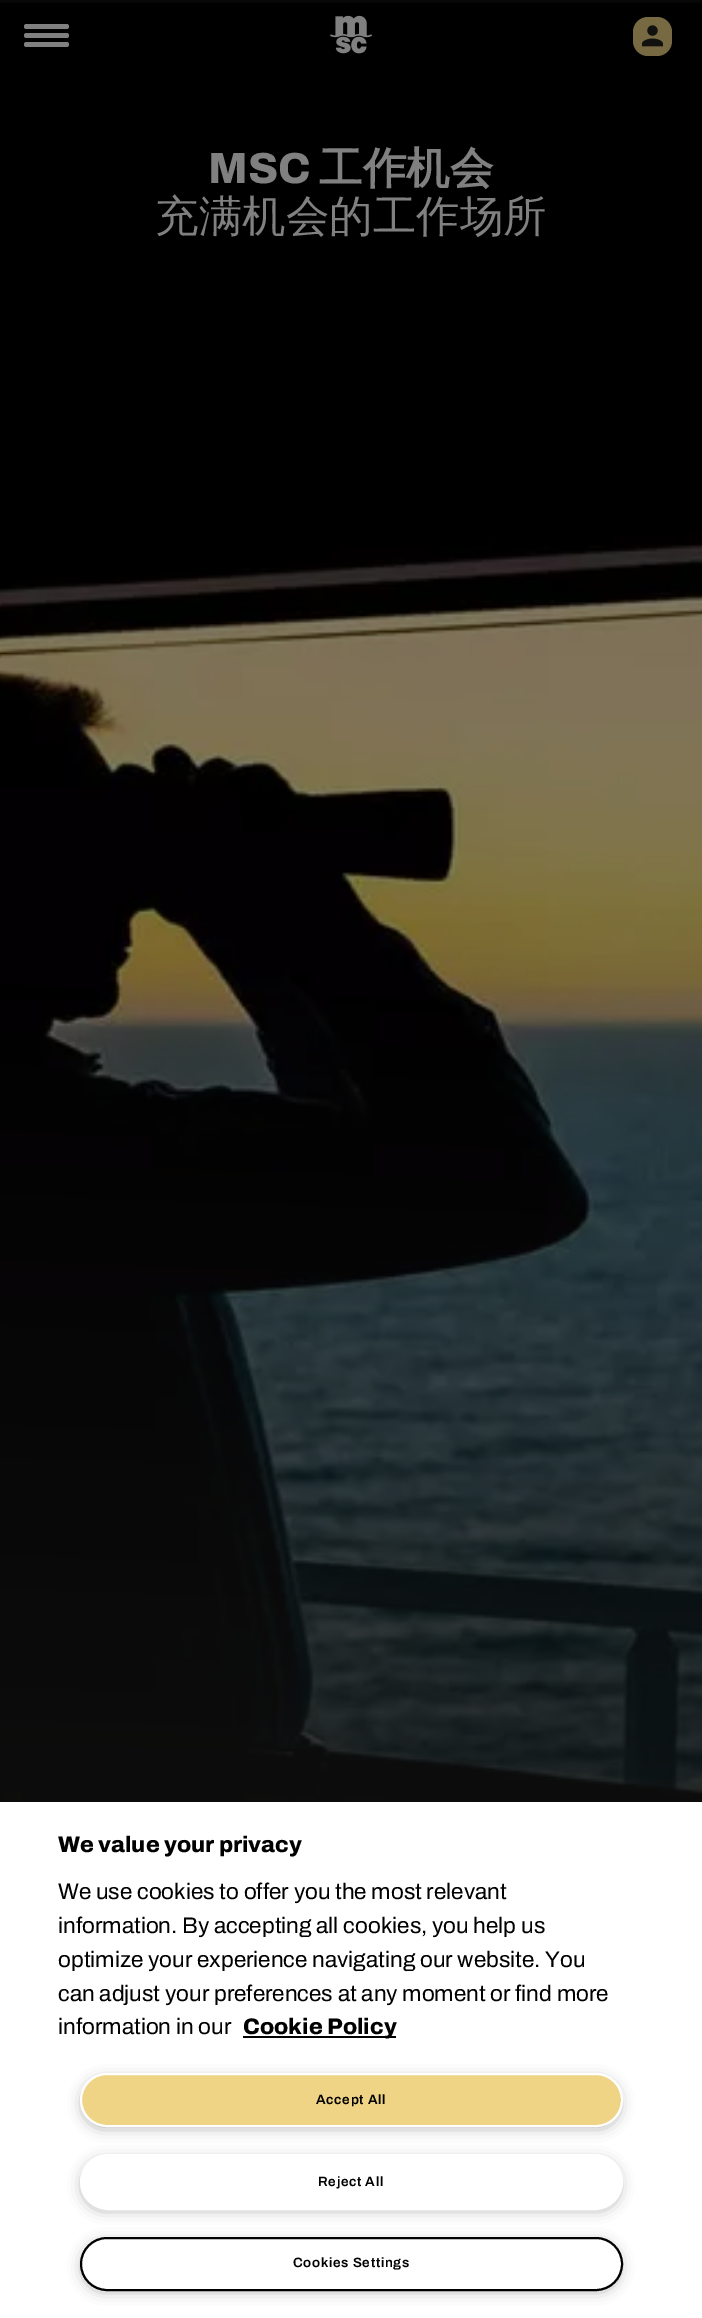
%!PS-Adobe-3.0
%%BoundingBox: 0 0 702 2318
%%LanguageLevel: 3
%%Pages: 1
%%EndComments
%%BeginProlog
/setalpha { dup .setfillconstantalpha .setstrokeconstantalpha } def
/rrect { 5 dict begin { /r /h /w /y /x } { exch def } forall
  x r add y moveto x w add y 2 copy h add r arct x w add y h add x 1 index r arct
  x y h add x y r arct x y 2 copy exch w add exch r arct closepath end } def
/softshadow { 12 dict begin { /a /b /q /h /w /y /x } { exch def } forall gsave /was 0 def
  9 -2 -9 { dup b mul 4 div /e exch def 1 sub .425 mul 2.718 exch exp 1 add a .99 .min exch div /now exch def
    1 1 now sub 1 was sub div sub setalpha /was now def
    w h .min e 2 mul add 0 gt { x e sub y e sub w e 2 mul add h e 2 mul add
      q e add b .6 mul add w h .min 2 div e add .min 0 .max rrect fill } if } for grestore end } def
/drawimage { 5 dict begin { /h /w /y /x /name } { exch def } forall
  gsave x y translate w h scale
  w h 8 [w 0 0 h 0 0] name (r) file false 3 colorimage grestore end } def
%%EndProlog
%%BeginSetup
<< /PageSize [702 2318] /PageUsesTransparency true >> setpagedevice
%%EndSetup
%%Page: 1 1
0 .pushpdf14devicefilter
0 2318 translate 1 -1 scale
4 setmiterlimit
1 setgray
0 0 702 2318 rectfill
(images/3.raw) 0 0 702 1802 drawimage
0.502 setgray
24 24 45 5 2.5 rrect fill
24 33 45 5 2.5 rrect fill
24 42 45 5 2.5 rrect fill
(images/1.raw) 330 15 42 39 drawimage
0.467 0.416 0.259 setrgbcolor
633 17 39 39 15 rrect fill
(images/2.raw) 642 25 21 22 drawimage
0 setgray
243 2036 153 2 rectfill
0.6 setgray
84 2081 534 45 22.5 7.5 1 softshadow
0.933 0.831 0.518 setrgbcolor
81 2074 541 52 26 rrect gsave fill grestore
1 setgray
2 setlinewidth
stroke
0.6 setgray
84 2162 534 46 23 7.5 1 softshadow
1 setgray
81 2155 541 54 27 rrect gsave fill grestore
stroke
0.6 setgray
84 2244 534 45 22.5 7.5 1 softshadow
1 setgray
81 2238 541 52 26 rrect gsave fill grestore
0 setgray
stroke
/Archivo-ExtraBold [43.5 0 0 -43.5 0 0] selectfont
0.502 setgray
208 183 moveto (MSC) show
/WenQuanYiZenHei-Bold [43.5 0 0 -43.5 0 0] selectfont
319 183 moveto (工作机会) show
/WenQuanYiZenHei-Medium [43.5 0 0 -43.5 0 0] selectfont
155 231 moveto (充满机会的工作场所) show
/Archivo-ExtraBold [22.5 0 0 -22.5 0 0] selectfont
0 setgray
58 1852 moveto (We value your privacy) show
/Archivo-Regular [22.5 0 0 -22.5 0 0] selectfont
58 1899 moveto (We use cookies to offer you the most relevant) show
58 1933 moveto (information. By accepting all cookies, you help us) show
58 1967 moveto (optimize your experience navigating our website. You) show
58 2001 moveto (can adjust your preferences at any moment or find more) show
58 2034 moveto (information in our) show
/Archivo-ExtraBold [22.5 0 0 -22.5 0 0] selectfont
243 2034 moveto (Cookie Policy) show
/Archivo-SemiBold [13.5 0 0 -13.5 0 0] selectfont
316 2104 moveto 0.7 0 (Accept All) ashow
318 2186 moveto 0.7 0 (Reject All) ashow
293 2267 moveto 0.7 0 (Cookies Settings) ashow
.poppdf14devicefilter showpage
%%EOF
